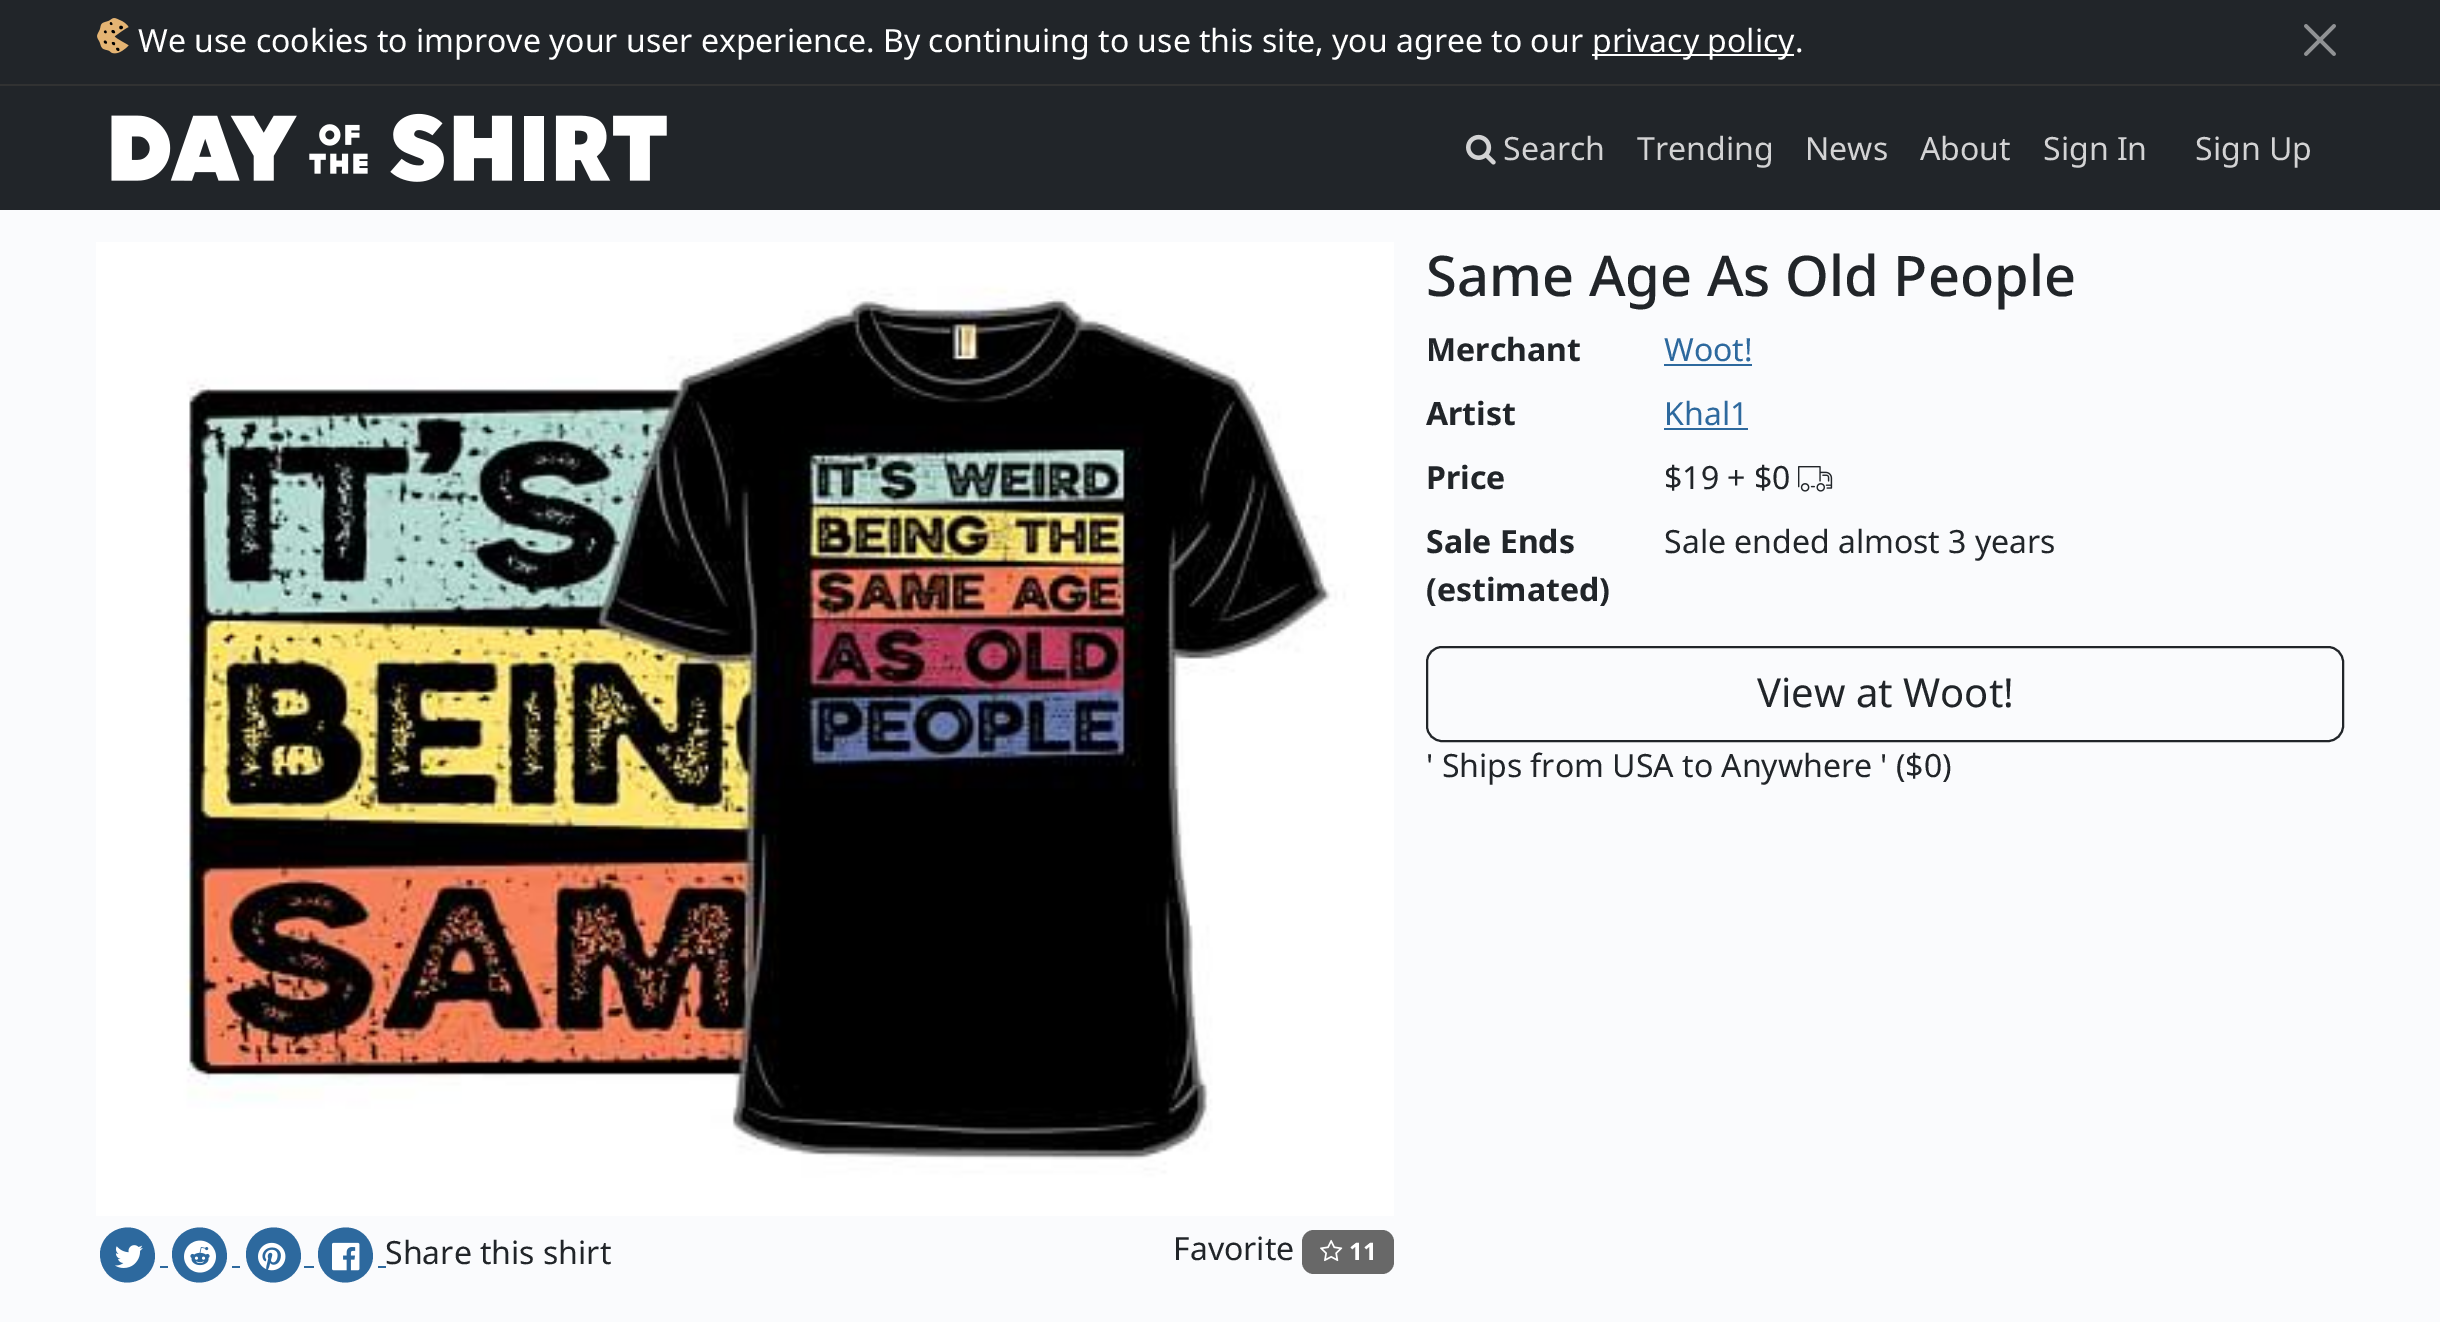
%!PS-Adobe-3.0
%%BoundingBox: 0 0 2440 1322
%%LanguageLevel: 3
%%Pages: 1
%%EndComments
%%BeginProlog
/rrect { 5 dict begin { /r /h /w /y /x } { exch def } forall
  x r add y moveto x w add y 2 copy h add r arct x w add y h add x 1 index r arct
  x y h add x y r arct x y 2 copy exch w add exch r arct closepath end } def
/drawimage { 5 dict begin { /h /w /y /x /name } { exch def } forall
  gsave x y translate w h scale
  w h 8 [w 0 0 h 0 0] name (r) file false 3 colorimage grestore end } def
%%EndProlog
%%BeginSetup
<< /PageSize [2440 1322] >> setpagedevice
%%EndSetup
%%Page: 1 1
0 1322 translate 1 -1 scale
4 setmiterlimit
0.98 0.984 0.992 setrgbcolor
0 0 2440 1322 rectfill
0.129 0.145 0.161 setrgbcolor
0 0 2440 84 rectfill
0.192 0.196 0.196 setrgbcolor
0 84 2440 2 rectfill
(images/1.raw) 97 18 32 36 drawimage
1 setgray
1592 54 202 2 rectfill
(images/2.raw) 2304 24 32 32 drawimage
0.129 0.145 0.161 setrgbcolor
0 86 2440 124 rectfill
(images/3.raw) 111 113 556 69 drawimage
(images/4.raw) 1466 134 30 31 drawimage
0.176 0.412 0.62 setrgbcolor
1664 364 88 2 rectfill
1664 428 84 2 rectfill
(images/5.raw) 1798 466 35 26 drawimage
0.129 0.145 0.161 setrgbcolor
2 setlinewidth
1427 647 916 94 15 rrect stroke
(images/6.raw) 96 242 1298 974 drawimage
0.176 0.412 0.62 setrgbcolor
newpath 151 1241 moveto 154 1246 155 1252 155 1257 curveto 153 1284 117 1292 104 1269 curveto 101 1264 100 1259 100 1253 curveto 102 1226 138 1218 151 1241 curveto closepath fill
(images/7.raw) 115 1245 28 23 drawimage
160 1266 8 2 rectfill
newpath 223 1241 moveto 226 1246 227 1252 227 1257 curveto 225 1284 189 1292 176 1269 curveto 173 1264 172 1259 172 1253 curveto 174 1226 210 1218 223 1241 curveto closepath fill
(images/8.raw) 184 1240 32 33 drawimage
232 1266 8 2 rectfill
newpath 297 1241 moveto 300 1246 301 1252 301 1257 curveto 299 1284 263 1292 250 1269 curveto 247 1264 246 1259 246 1253 curveto 248 1226 284 1218 297 1241 curveto closepath fill
(images/9.raw) 258 1242 28 29 drawimage
304 1266 10 2 rectfill
newpath 369 1241 moveto 372 1246 373 1252 373 1257 curveto 371 1284 335 1292 322 1269 curveto 319 1264 318 1259 318 1253 curveto 320 1226 356 1218 369 1241 curveto closepath fill
(images/10.raw) 332 1242 28 29 drawimage
378 1266 8 2 rectfill
0.408 setgray
1302 1230 92 44 12 rrect fill
(images/11.raw) 1320 1239 23 23 drawimage
/NotoSans-Regular [32 0 0 -32 0 0] selectfont
1 setgray
138 52 moveto (We use cookies to improve your user experience. By continuing to use this site, you agree to our) show
1592 52 moveto (privacy policy.) show
0.827 0.827 0.831 setrgbcolor
1503 160 moveto (Search) show
1637 160 moveto (Trending) show
1805 160 moveto (News) show
1920 160 moveto (About) show
2043 160 moveto (Sign In) show
2195 160 moveto (Sign Up) show
/NotoSans-Medium [56 0 0 -56 0 0] selectfont
0.129 0.145 0.161 setrgbcolor
1426 296 moveto (Same Age As Old People) show
/NotoSans-Bold [32 0 0 -32 0 0] selectfont
1426 361 moveto (Merchant) show
/NotoSans-Regular [32 0 0 -32 0 0] selectfont
0.176 0.412 0.62 setrgbcolor
1664 361 moveto (Woot!) show
/NotoSans-Bold [32 0 0 -32 0 0] selectfont
0.129 0.145 0.161 setrgbcolor
1426 425 moveto (Artist) show
/NotoSans-Regular [32 0 0 -32 0 0] selectfont
0.176 0.412 0.62 setrgbcolor
1664 425 moveto (Khal1) show
/NotoSans-Bold [32 0 0 -32 0 0] selectfont
0.129 0.145 0.161 setrgbcolor
1426 489 moveto (Price) show
/NotoSans-Regular [32 0 0 -32 0 0] selectfont
1664 489 moveto ($19 + $0) show
/NotoSans-Bold [32 0 0 -32 0 0] selectfont
1426 553 moveto (Sale Ends) show
1426 601 moveto (\(estimated\)) show
/NotoSans-Regular [32 0 0 -32 0 0] selectfont
1664 553 moveto (Sale ended almost 3 years) show
/NotoSans-Regular [40 0 0 -40 0 0] selectfont
1757 707 moveto (View at Woot!) show
/NotoSans-Regular [32 0 0 -32 0 0] selectfont
1426 777 moveto (' Ships from USA to Anywhere ' \($0\)) show
385 1264 moveto (Share this shirt) show
1173 1260 moveto (Favorite) show
/NotoSans-Bold [24 0 0 -24 0 0] selectfont
1 setgray
1349 1260 moveto (11) show
showpage
%%EOF
